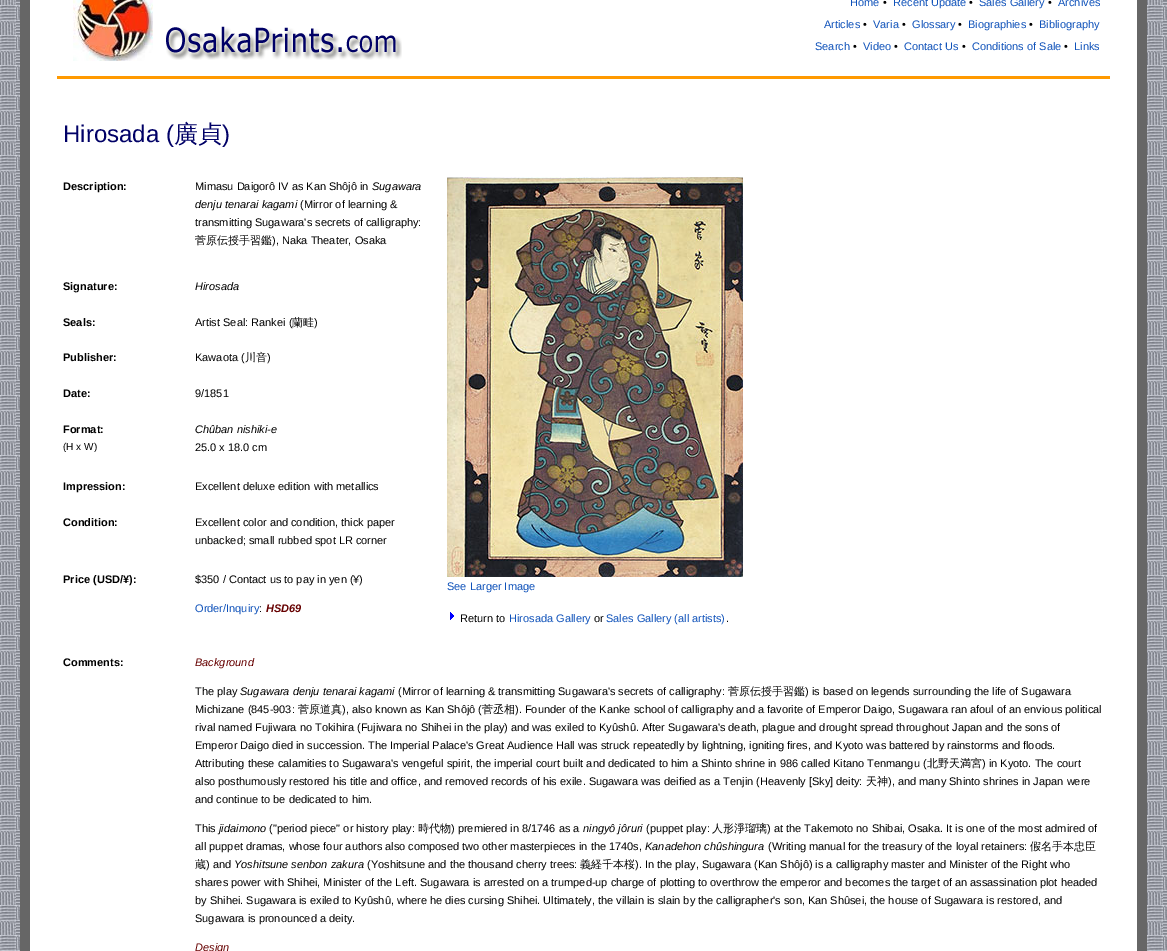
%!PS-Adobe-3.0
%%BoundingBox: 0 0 1167 951
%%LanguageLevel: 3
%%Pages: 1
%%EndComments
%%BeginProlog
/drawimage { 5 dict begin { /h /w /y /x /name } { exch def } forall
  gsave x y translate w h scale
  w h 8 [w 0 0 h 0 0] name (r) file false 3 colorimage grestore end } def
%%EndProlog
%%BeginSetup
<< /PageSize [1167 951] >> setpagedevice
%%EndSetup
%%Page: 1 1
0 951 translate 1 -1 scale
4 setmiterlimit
1 setgray
0 0 1167 951 rectfill
(images/1.raw) 0 0 1167 951 drawimage
0.4 setgray
20 0 1127 951 rectfill
1 setgray
30 0 1107 951 rectfill
(images/2.raw) 73 0 80 61 drawimage
(images/3.raw) 166 26 236 34 drawimage
1 0.6 0 setrgbcolor
57 76 1053 3 rectfill
(images/4.raw) 447 177 296 400 drawimage
(images/5.raw) 450 612 4 8 drawimage
/LiberationSans-Regular [11 0 0 -11 0 0] selectfont
0.059 0.322 0.729 setrgbcolor
850 6 moveto (Home) show
0 setgray
883 6 moveto (•) show
0.059 0.322 0.729 setrgbcolor
893 6 moveto (Recent Update) show
0 setgray
969 6 moveto (•) show
0.059 0.322 0.729 setrgbcolor
979 6 moveto (Sales Gallery) show
0 setgray
1048 6 moveto (•) show
0.059 0.322 0.729 setrgbcolor
1058 6 moveto (Archives) show
824 28 moveto (Articles) show
0 setgray
863 28 moveto (•) show
0.059 0.322 0.729 setrgbcolor
873 28 moveto (Varia) show
0 setgray
902 28 moveto (•) show
0.059 0.322 0.729 setrgbcolor
912 28 moveto (Glossary) show
0 setgray
958 28 moveto (•) show
0.059 0.322 0.729 setrgbcolor
968 28 moveto (Biographies) show
0 setgray
1029 28 moveto (•) show
0.059 0.322 0.729 setrgbcolor
1039 28 moveto (Bibliography) show
815 50 moveto (Search) show
0 setgray
853 50 moveto (•) show
0.059 0.322 0.729 setrgbcolor
863 50 moveto (Video) show
0 setgray
894 50 moveto (•) show
0.059 0.322 0.729 setrgbcolor
904 50 moveto (Contact Us) show
0 setgray
962 50 moveto (•) show
0.059 0.322 0.729 setrgbcolor
972 50 moveto (Conditions of Sale) show
0 setgray
1064 50 moveto (•) show
0.059 0.322 0.729 setrgbcolor
1074 50 moveto (Links) show
/LiberationSans-Regular [24 0 0 -24 0 0] selectfont
0 0 0.4 setrgbcolor
63 142 moveto (Hirosada \() show
/WenQuanYiZenHei-Medium [24 0 0 -24 0 0] selectfont
174 142 moveto (廣貞) show
/LiberationSans-Regular [24 0 0 -24 0 0] selectfont
222 142 moveto (\)) show
/LiberationSans-Bold [11 0 0 -11 0 0] selectfont
0 setgray
63 190 moveto (Description:) show
/LiberationSans-Regular [11 0 0 -11 0 0] selectfont
195 190 moveto (Mimasu Daigorô IV as Kan Shôjô in) show
/LiberationSans-Italic [11 0 0 -11 0 0] selectfont
372 190 moveto (Sugawara) show
195 208 moveto (denju tenarai kagami) show
/LiberationSans-Regular [11 0 0 -11 0 0] selectfont
300 208 moveto (\(Mirror of learning &) show
195 226 moveto (transmitting Sugawara's secrets of calligraphy:) show
/WenQuanYiZenHei-Medium [11 0 0 -11 0 0] selectfont
195 244 moveto (菅原伝授手習鑑) show
/LiberationSans-Regular [11 0 0 -11 0 0] selectfont
272 244 moveto (\), Naka Theater, Osaka) show
0.059 0.322 0.729 setrgbcolor
447 590 moveto (See Larger Image) show
0 setgray
460 622 moveto (Return to) show
0.059 0.322 0.729 setrgbcolor
509 622 moveto (Hirosada Gallery) show
0 setgray
594 622 moveto (or) show
0.059 0.322 0.729 setrgbcolor
606 622 moveto (Sales Gallery \(all artists\)) show
0 setgray
726 622 moveto (.) show
/LiberationSans-Bold [11 0 0 -11 0 0] selectfont
63 290 moveto (Signature:) show
/LiberationSans-Italic [11 0 0 -11 0 0] selectfont
195 290 moveto (Hirosada) show
/LiberationSans-Bold [11 0 0 -11 0 0] selectfont
63 326 moveto (Seals:) show
/LiberationSans-Regular [11 0 0 -11 0 0] selectfont
195 326 moveto (Artist Seal: Rankei \() show
/WenQuanYiZenHei-Medium [11 0 0 -11 0 0] selectfont
292 326 moveto (蘭畦) show
/LiberationSans-Regular [11 0 0 -11 0 0] selectfont
314 326 moveto (\)) show
/LiberationSans-Bold [11 0 0 -11 0 0] selectfont
63 361 moveto (Publisher:) show
/LiberationSans-Regular [11 0 0 -11 0 0] selectfont
195 361 moveto (Kawaota \() show
/WenQuanYiZenHei-Medium [11 0 0 -11 0 0] selectfont
245 361 moveto (川音) show
/LiberationSans-Regular [11 0 0 -11 0 0] selectfont
267 361 moveto (\)) show
/LiberationSans-Bold [11 0 0 -11 0 0] selectfont
63 397 moveto (Date:) show
/LiberationSans-Regular [11 0 0 -11 0 0] selectfont
195 397 moveto (9/1851) show
/LiberationSans-Bold [11 0 0 -11 0 0] selectfont
63 433 moveto (Format:) show
/LiberationSans-Regular [10 0 0 -10 0 0] selectfont
63 450 moveto (\(H x W\)) show
/LiberationSans-Italic [11 0 0 -11 0 0] selectfont
195 433 moveto (Chûban nishiki-e) show
/LiberationSans-Regular [11 0 0 -11 0 0] selectfont
195 451 moveto (25.0 x 18.0 cm) show
/LiberationSans-Bold [11 0 0 -11 0 0] selectfont
63 490 moveto (Impression:) show
/LiberationSans-Regular [11 0 0 -11 0 0] selectfont
195 490 moveto (Excellent deluxe edition with metallics) show
/LiberationSans-Bold [11 0 0 -11 0 0] selectfont
63 526 moveto (Condition:) show
/LiberationSans-Regular [11 0 0 -11 0 0] selectfont
195 526 moveto (Excellent color and condition, thick paper) show
195 544 moveto (unbacked; small rubbed spot LR corner) show
/LiberationSans-Bold [11 0 0 -11 0 0] selectfont
63 583 moveto (Price \(USD/¥\):) show
/LiberationSans-Regular [11 0 0 -11 0 0] selectfont
195 583 moveto ($350 / Contact us to pay in yen \(¥\)) show
0.059 0.322 0.729 setrgbcolor
195 612 moveto (Order/Inquiry) show
0 setgray
259 612 moveto (:) show
/LiberationSans-BoldItalic [11 0 0 -11 0 0] selectfont
0.4 0 0 setrgbcolor
266 612 moveto (HSD69) show
/LiberationSans-Bold [11 0 0 -11 0 0] selectfont
0 setgray
63 666 moveto (Comments:) show
/LiberationSans-Italic [11 0 0 -11 0 0] selectfont
0.4 0 0 setrgbcolor
195 666 moveto (Background) show
/LiberationSans-Regular [11 0 0 -11 0 0] selectfont
0 setgray
195 695 moveto (The play) show
/LiberationSans-Italic [11 0 0 -11 0 0] selectfont
240 695 moveto (Sugawara denju tenarai kagami) show
/LiberationSans-Regular [11 0 0 -11 0 0] selectfont
398 695 moveto (\(Mirror of learning & transmitting Sugawara's secrets of calligraphy:) show
/WenQuanYiZenHei-Medium [11 0 0 -11 0 0] selectfont
728 695 moveto (菅原伝授手習鑑) show
/LiberationSans-Regular [11 0 0 -11 0 0] selectfont
805 695 moveto (\) is based on legends surrounding the life of Sugawara) show
195 713 moveto (Michizane \(845-903:) show
/WenQuanYiZenHei-Medium [11 0 0 -11 0 0] selectfont
298 713 moveto (菅原道真) show
/LiberationSans-Regular [11 0 0 -11 0 0] selectfont
342 713 moveto (\), also known as Kan Shôjô \() show
/WenQuanYiZenHei-Medium [11 0 0 -11 0 0] selectfont
482 713 moveto (菅丞相) show
/LiberationSans-Regular [11 0 0 -11 0 0] selectfont
515 713 moveto (\). Founder of the Kanke school of calligraphy and a favorite of Emperor Daigo, Sugawara ran afoul of an envious political) show
195 731 moveto (rival named Fujiwara no Tokihira \(Fujiwara no Shihei in the play\) and was exiled to Kyûshû. After Sugawara's death, plague and drought spread throughout Japan and the sons of) show
195 749 moveto (Emperor Daigo died in succession. The Imperial Palace's Great Audience Hall was struck repeatedly by lightning, igniting fires, and Kyoto was battered by rainstorms and floods.) show
195 767 moveto (Attributing these calamities to Sugawara's vengeful spirit, the imperial court built and dedicated to him a Shinto shrine in 986 called Kitano Tenmangu \() show
/WenQuanYiZenHei-Medium [11 0 0 -11 0 0] selectfont
927 767 moveto (北野天満宮) show
/LiberationSans-Regular [11 0 0 -11 0 0] selectfont
982 767 moveto (\) in Kyoto. The court) show
195 785 moveto (also posthumously restored his title and office, and removed records of his exile. Sugawara was deified as a Tenjin \(Heavenly [Sky] deity:) show
/WenQuanYiZenHei-Medium [11 0 0 -11 0 0] selectfont
866 785 moveto (天神) show
/LiberationSans-Regular [11 0 0 -11 0 0] selectfont
888 785 moveto (\), and many Shinto shrines in Japan were) show
195 803 moveto (and continue to be dedicated to him.) show
195 832 moveto (This) show
/LiberationSans-Italic [11 0 0 -11 0 0] selectfont
219 832 moveto (jidaimono) show
/LiberationSans-Regular [11 0 0 -11 0 0] selectfont
269 832 moveto (\("period piece" or history play:) show
/WenQuanYiZenHei-Medium [11 0 0 -11 0 0] selectfont
418 832 moveto (時代物) show
/LiberationSans-Regular [11 0 0 -11 0 0] selectfont
451 832 moveto (\) premiered in 8/1746 as a) show
/LiberationSans-Italic [11 0 0 -11 0 0] selectfont
583 832 moveto (ningyô jôruri) show
/LiberationSans-Regular [11 0 0 -11 0 0] selectfont
646 832 moveto (\(puppet play:) show
/WenQuanYiZenHei-Medium [11 0 0 -11 0 0] selectfont
712 832 moveto (人形淨瑠璃) show
/LiberationSans-Regular [11 0 0 -11 0 0] selectfont
767 832 moveto (\) at the Takemoto no Shibai, Osaka. It is one of the most admired of) show
195 850 moveto (all puppet dramas, whose four authors also composed two other masterpieces in the 1740s,) show
/LiberationSans-Italic [11 0 0 -11 0 0] selectfont
645 850 moveto (Kanadehon chûshingura) show
/LiberationSans-Regular [11 0 0 -11 0 0] selectfont
768 850 moveto (\(Writing manual for the treasury of the loyal retainers:) show
/WenQuanYiZenHei-Medium [11 0 0 -11 0 0] selectfont
1030 850 moveto (假名手本忠臣) show
195 868 moveto (蔵) show
/LiberationSans-Regular [11 0 0 -11 0 0] selectfont
206 868 moveto (\) and) show
/LiberationSans-Italic [11 0 0 -11 0 0] selectfont
234 868 moveto (Yoshitsune senbon zakura) show
/LiberationSans-Regular [11 0 0 -11 0 0] selectfont
367 868 moveto (\(Yoshitsune and the thousand cherry trees:) show
/WenQuanYiZenHei-Medium [11 0 0 -11 0 0] selectfont
580 868 moveto (義経千本桜) show
/LiberationSans-Regular [11 0 0 -11 0 0] selectfont
635 868 moveto (\). In the play, Sugawara \(Kan Shôjô\) is a calligraphy master and Minister of the Right who) show
195 886 moveto (shares power with Shihei, Minister of the Left. Sugawara is arrested on a trumped-up charge of plotting to overthrow the emperor and becomes the target of an assassination plot headed) show
195 904 moveto (by Shihei. Sugawara is exiled to Kyûshû, where he dies cursing Shihei. Ultimately, the villain is slain by the calligrapher's son, Kan Shûsei, the house of Sugawara is restored, and) show
195 922 moveto (Sugawara is pronounced a deity.) show
/LiberationSans-Italic [11 0 0 -11 0 0] selectfont
0.4 0 0 setrgbcolor
195 951 moveto (Design) show
showpage
%%EOF
